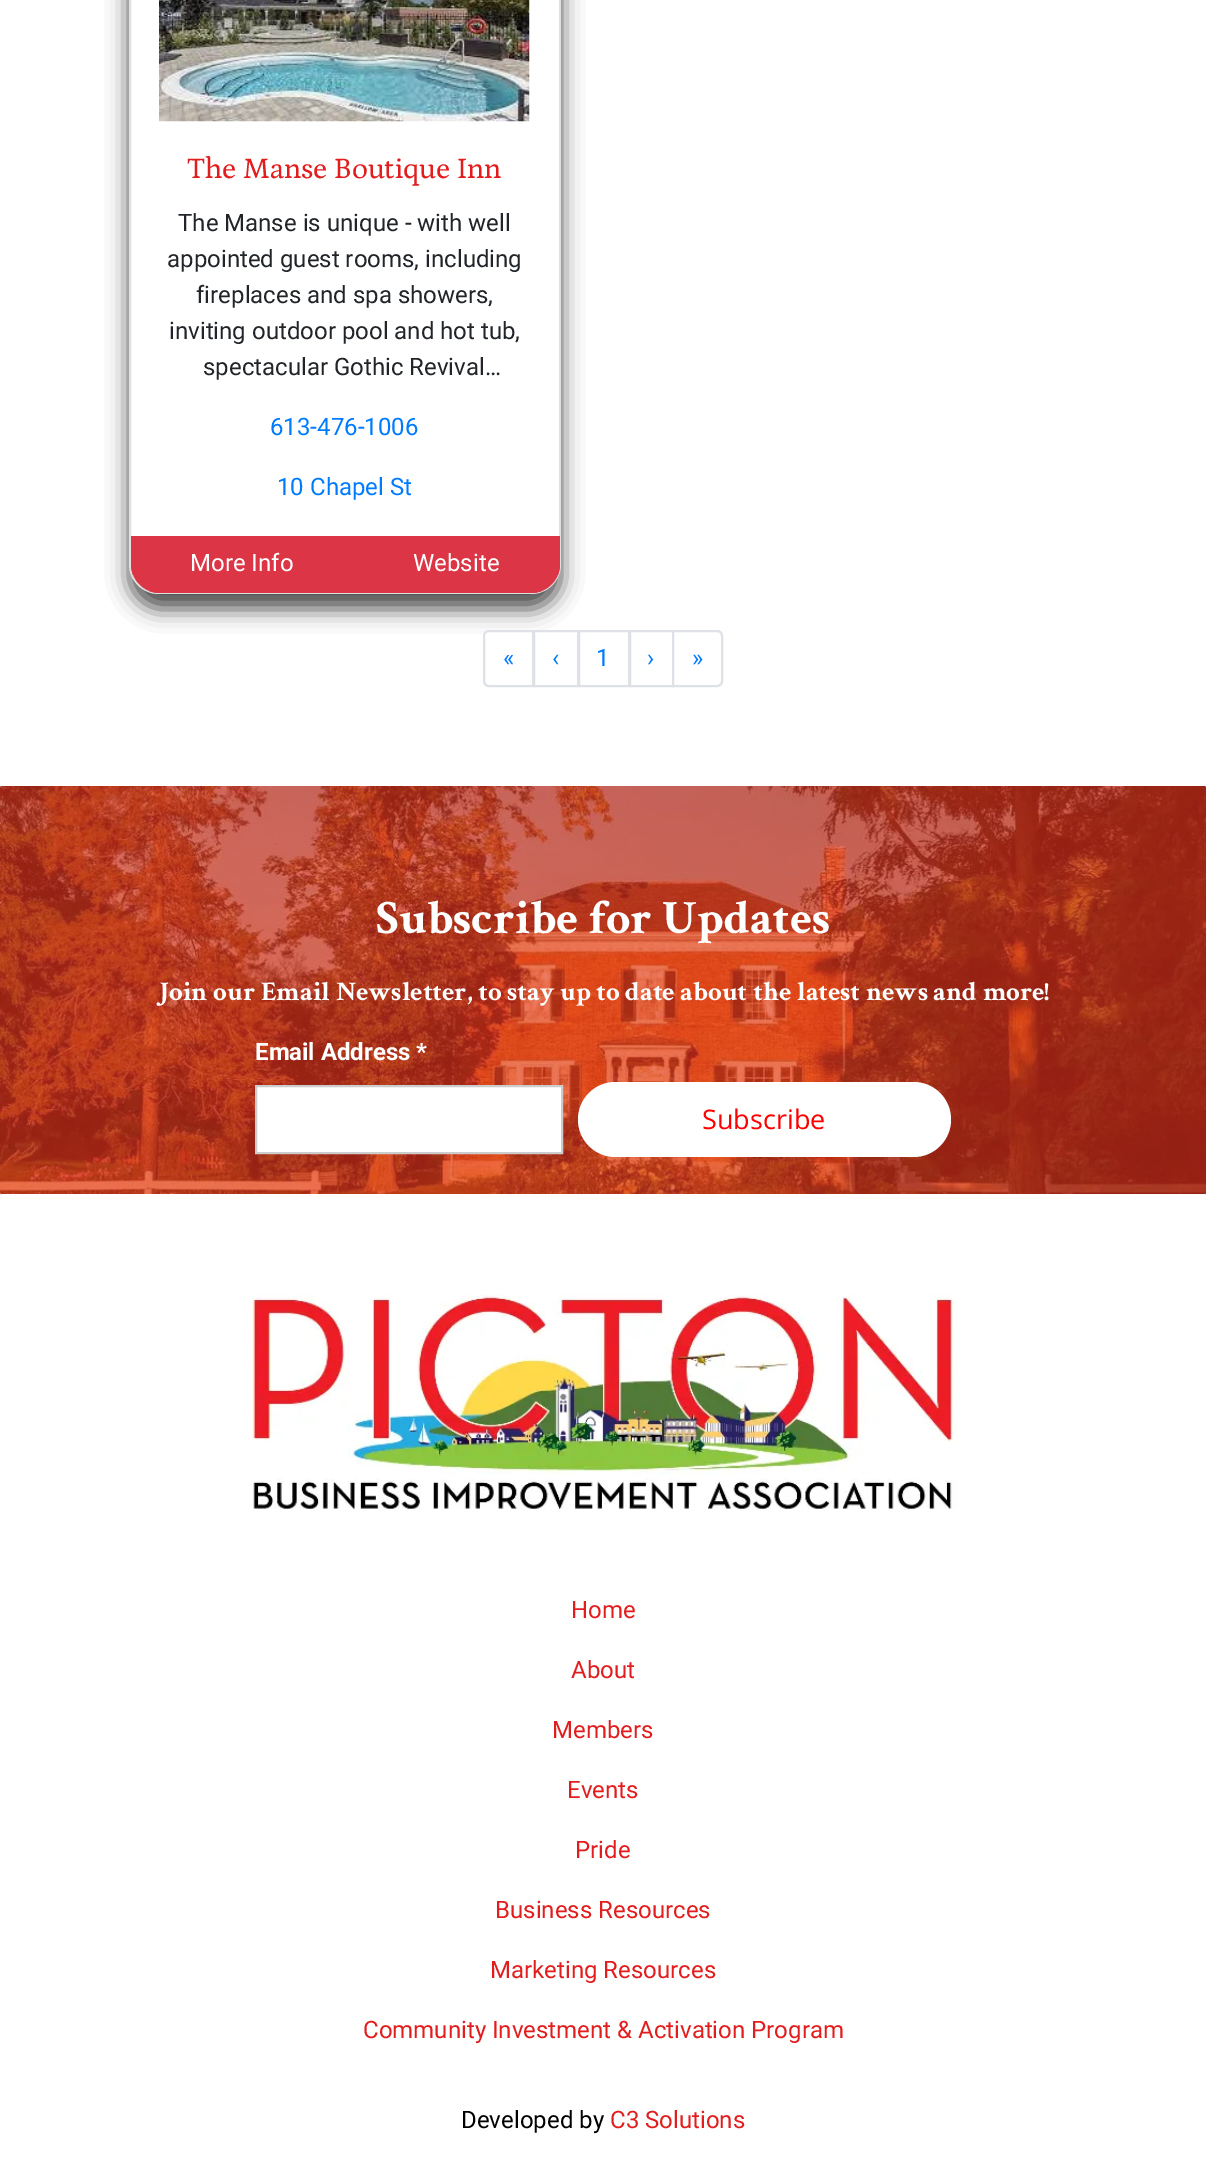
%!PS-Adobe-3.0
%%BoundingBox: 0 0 1206 2182
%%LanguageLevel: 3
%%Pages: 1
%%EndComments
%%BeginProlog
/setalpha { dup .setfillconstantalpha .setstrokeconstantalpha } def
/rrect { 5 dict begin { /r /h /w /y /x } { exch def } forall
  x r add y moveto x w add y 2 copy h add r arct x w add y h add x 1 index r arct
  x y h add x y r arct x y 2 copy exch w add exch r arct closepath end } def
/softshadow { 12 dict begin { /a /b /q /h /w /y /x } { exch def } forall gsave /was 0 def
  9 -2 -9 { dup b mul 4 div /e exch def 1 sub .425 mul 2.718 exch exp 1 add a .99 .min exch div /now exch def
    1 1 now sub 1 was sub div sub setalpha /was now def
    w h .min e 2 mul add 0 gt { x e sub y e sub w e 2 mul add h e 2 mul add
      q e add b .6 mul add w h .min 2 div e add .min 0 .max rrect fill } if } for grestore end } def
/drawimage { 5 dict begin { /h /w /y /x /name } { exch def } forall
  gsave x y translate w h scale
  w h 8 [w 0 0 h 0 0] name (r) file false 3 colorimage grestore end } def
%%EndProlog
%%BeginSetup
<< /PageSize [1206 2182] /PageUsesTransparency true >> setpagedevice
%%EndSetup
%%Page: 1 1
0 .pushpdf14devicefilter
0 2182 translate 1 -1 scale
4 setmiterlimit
1 setgray
0 0 1206 2182 rectfill
0 setgray
129 -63 432 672 30 11 0.7 softshadow
1 setgray
129 -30 432 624 30 rrect fill
0.12 setalpha
0 setgray
2 setlinewidth
130 -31 430 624 29 rrect stroke
1 setalpha
(images/1.raw) 159 0 371 122 drawimage
0.863 0.208 0.271 setrgbcolor
newpath 131 536 moveto 353 536 lineto 353 593 lineto 160 593 lineto 144 593 131 580 131 564 curveto closepath fill
newpath 133 538 moveto 351 538 lineto 351 591 lineto 149 591 lineto 153 592 156 593 160 593 curveto 353 593 lineto 353 536 lineto 131 536 lineto 131 564 lineto 131 568 132 571 133 575 curveto closepath fill
newpath 353 536 moveto 560 536 lineto 560 564 lineto 560 580 547 593 531 593 curveto 353 593 lineto closepath fill
newpath 353 536 moveto 353 593 lineto 531 593 lineto 535 593 538 592 542 591 curveto 355 591 lineto 355 538 lineto 558 538 lineto 558 575 lineto 559 571 560 568 560 564 curveto 560 536 lineto closepath fill
1 setgray
newpath 489 631 moveto 533 631 lineto 533 686 lineto 489 686 lineto 486 686 484 684 484 681 curveto 484 636 lineto 484 633 486 631 489 631 curveto closepath gsave fill grestore
0.871 0.886 0.902 setrgbcolor
stroke
534 631 44 55 rectstroke
579 631 50 55 rectstroke
630 631 43 55 rectstroke
1 setgray
newpath 673 631 moveto 717 631 lineto 720 631 722 633 722 636 curveto 722 681 lineto 722 684 720 686 717 686 curveto 673 686 lineto closepath gsave fill grestore
0.871 0.886 0.902 setrgbcolor
stroke
(images/2.raw) 0 786 1206 408 drawimage
1 setgray
newpath 256 1086 moveto 562 1086 lineto 562 1153 lineto 256 1153 lineto closepath gsave fill grestore
0.8 setgray
stroke
1 setgray
578 1082 373 75 37.5 rrect fill
0.886 0.114 0.114 setrgbcolor
0 1194 1206 988 rectfill
1 setgray
0 1194 1206 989 1.5 rrect fill
(images/3.raw) 252 1294 705 217 drawimage
/Petrona-Regular [30 0 0 -30 0 0] selectfont
0.886 0.114 0.114 setrgbcolor
187 178 moveto (The Manse Boutique Inn) show
/Roboto-Regular [24 0 0 -24 0 0] selectfont
0.129 0.145 0.161 setrgbcolor
178 231 moveto (The Manse is unique - with well) show
167 267 moveto (appointed guest rooms, including) show
196 303 moveto (fireplaces and spa showers,) show
169 339 moveto (inviting outdoor pool and hot tub,) show
203 375 moveto (spectacular Gothic Revival…) show
0 0.482 1 setrgbcolor
270 435 moveto (613-476-1006) show
277 495 moveto (10 Chapel St) show
1 setgray
190 571 moveto (More Info) show
413 571 moveto (Website) show
0 0.482 1 setrgbcolor
503 666 moveto («) show
552 666 moveto (‹) show
596 666 moveto (1) show
647 666 moveto (›) show
692 666 moveto (») show
/CrimsonText-Bold [48 0 0 -48 0 0] selectfont
1 setgray
376 933 moveto (Subscribe for Updates) show
/CrimsonText-Bold [27 0 0 -27 0 0] selectfont
156 1000 moveto (Join our Email Newsletter, to stay up to date about the latest news and more!) show
/Roboto-Bold [24 0 0 -24 0 0] selectfont
255 1060 moveto (Email Address *) show
/OpenSans-Regular [27 0 0 -27 0 0] selectfont
1 0 0 setrgbcolor
702 1129 moveto (Subscribe) show
/Roboto-Regular [24 0 0 -24 0 0] selectfont
0.886 0.114 0.114 setrgbcolor
571 1618 moveto (Home) show
571 1678 moveto (About) show
552 1738 moveto (Members) show
567 1798 moveto (Events) show
575 1858 moveto (Pride) show
495 1918 moveto (Business Resources) show
490 1978 moveto (Marketing Resources) show
363 2038 moveto (Community Investment & Activation Program) show
0 setgray
461 2128 moveto (Developed by) show
0.886 0.114 0.114 setrgbcolor
610 2128 moveto (C3 Solutions) show
.poppdf14devicefilter showpage
%%EOF
